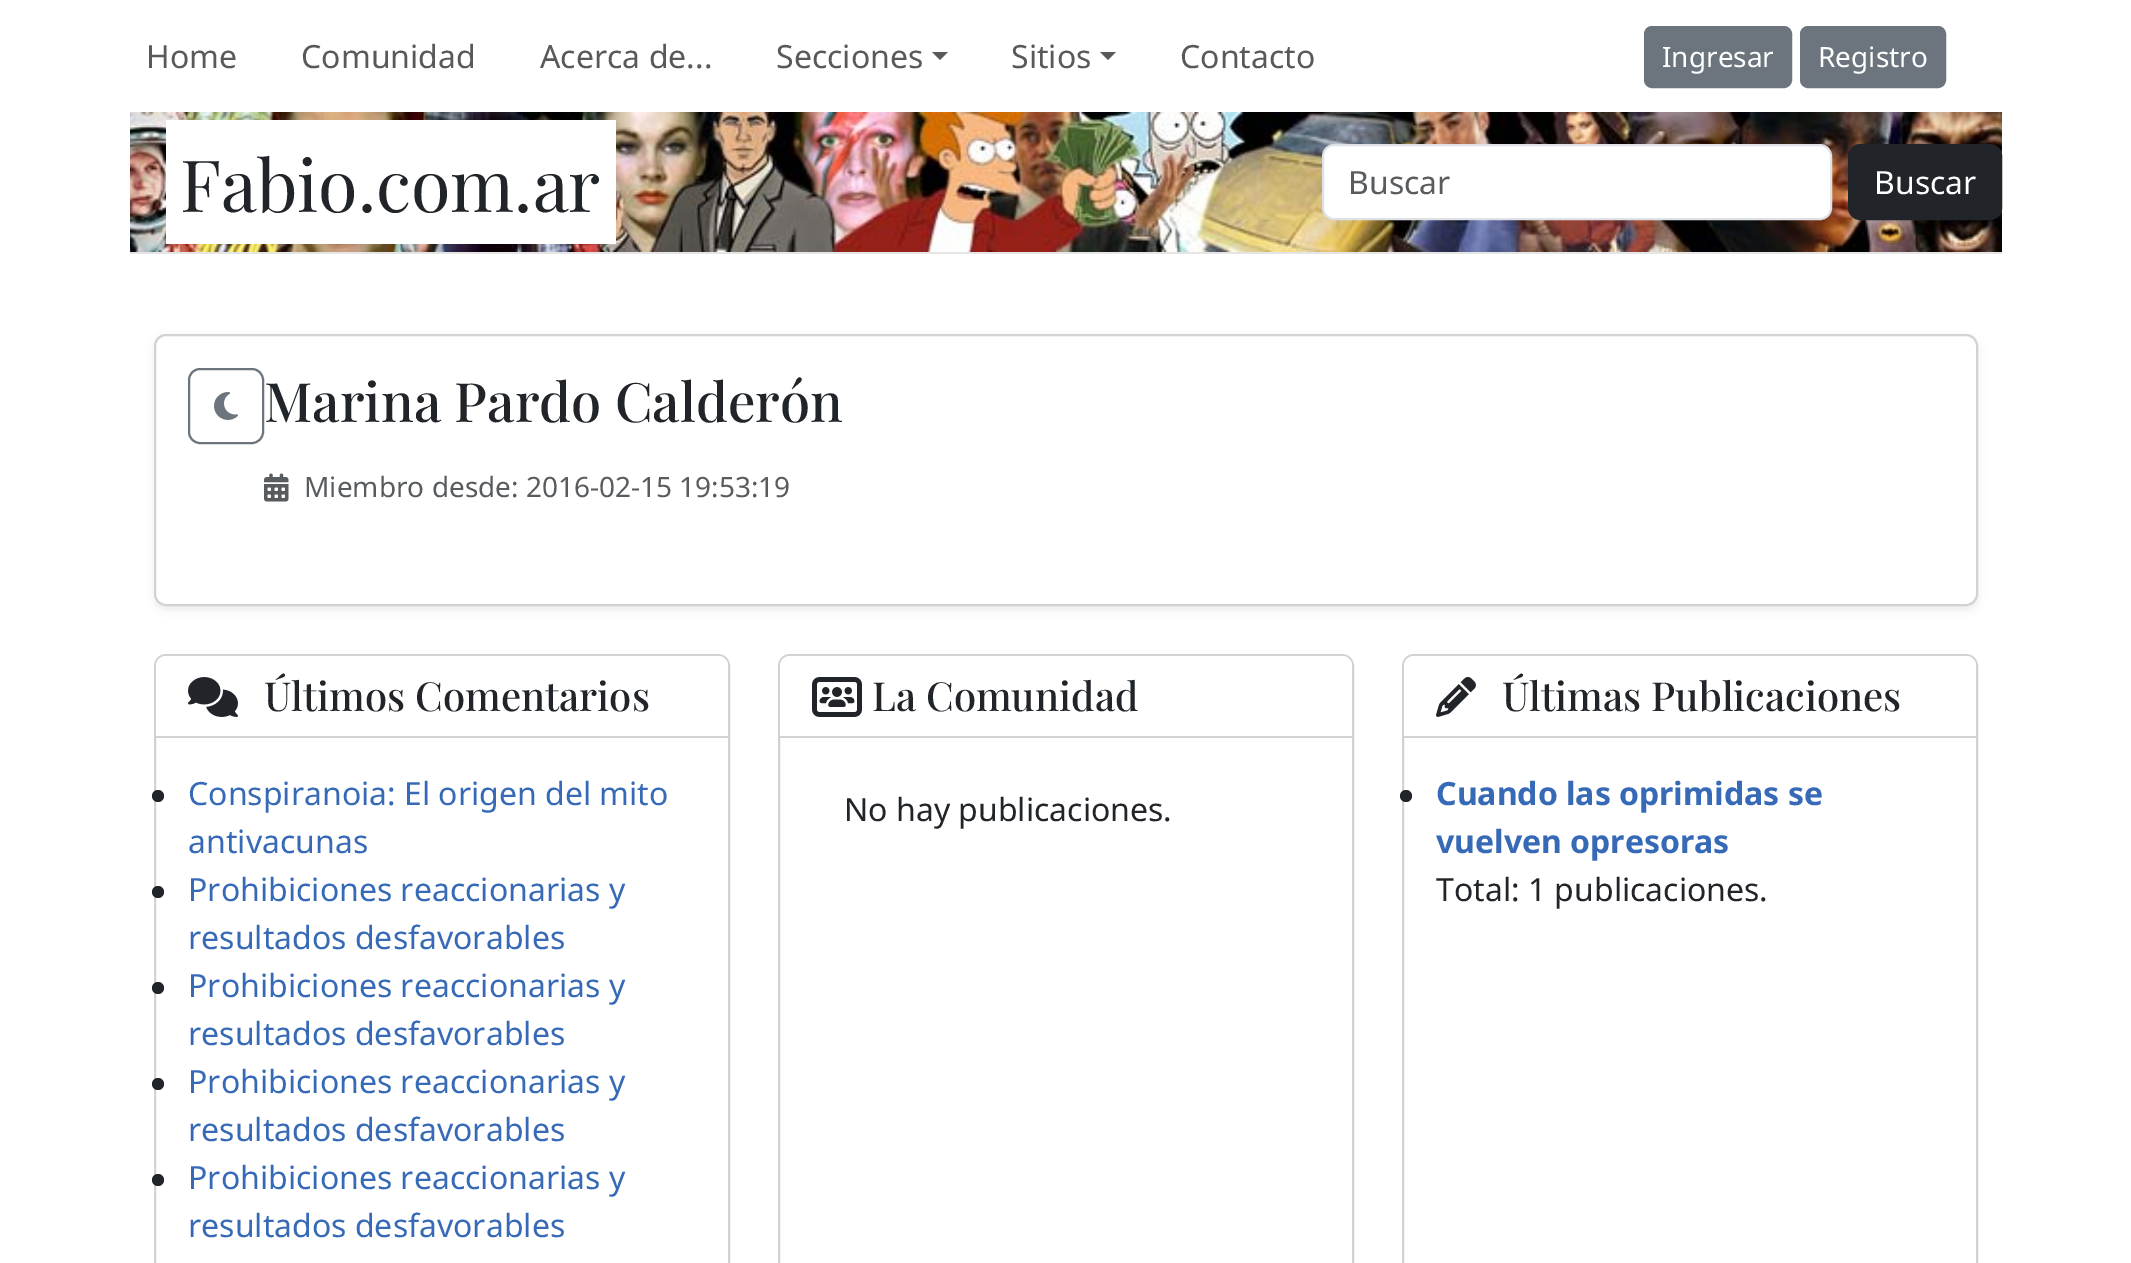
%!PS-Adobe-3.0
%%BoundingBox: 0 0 2131 1263
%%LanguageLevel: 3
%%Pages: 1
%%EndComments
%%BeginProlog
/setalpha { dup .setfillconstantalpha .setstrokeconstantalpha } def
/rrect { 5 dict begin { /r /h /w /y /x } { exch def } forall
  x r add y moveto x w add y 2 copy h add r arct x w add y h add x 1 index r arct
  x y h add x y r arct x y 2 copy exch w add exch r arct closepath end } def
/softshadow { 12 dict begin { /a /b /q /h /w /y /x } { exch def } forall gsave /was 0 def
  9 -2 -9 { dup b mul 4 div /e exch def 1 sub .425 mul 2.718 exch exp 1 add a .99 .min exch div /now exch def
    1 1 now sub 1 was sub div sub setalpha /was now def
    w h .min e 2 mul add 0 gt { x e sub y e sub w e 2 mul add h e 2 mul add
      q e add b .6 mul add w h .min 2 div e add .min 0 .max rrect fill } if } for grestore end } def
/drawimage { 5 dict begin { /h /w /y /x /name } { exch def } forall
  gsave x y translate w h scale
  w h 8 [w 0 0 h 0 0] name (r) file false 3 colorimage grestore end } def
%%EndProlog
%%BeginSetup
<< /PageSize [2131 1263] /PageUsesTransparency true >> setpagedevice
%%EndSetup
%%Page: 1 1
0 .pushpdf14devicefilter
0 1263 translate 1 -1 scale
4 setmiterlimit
1 setgray
0 0 2131 1263 rectfill
0.349 setgray
newpath 932 52 moveto 948 52 lineto 940 60 lineto closepath fill
newpath 1100 52 moveto 1116 52 lineto 1108 60 lineto closepath fill
0.424 0.459 0.49 setrgbcolor
1645 27 146 60 7 rrect gsave fill grestore
2 setlinewidth
stroke
1801 27 144 60 7 rrect gsave fill grestore
stroke
(images/1.raw) 130 112 1872 140 drawimage
0.898 setgray
130 252 1872 2 rectfill
1 setgray
166 120 450 124 rectfill
1323 145 508 74 11 rrect gsave fill grestore
0.871 0.886 0.902 setrgbcolor
stroke
0.129 0.145 0.161 setrgbcolor
1849 145 152 74 11 rrect gsave fill grestore
stroke
0 setgray
154 338 1824 272 12 4 0.07 softshadow
1 setgray
155 335 1822 270 11 rrect gsave fill grestore
0.824 setgray
stroke
0.424 0.459 0.49 setrgbcolor
189 369 74 74 11 rrect stroke
(images/2.raw) 214 392 24 28 drawimage
(images/3.raw) 264 473 25 29 drawimage
0.824 setgray
155 655 574 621 11 rrect stroke
1 setgray
newpath 166 656 moveto 718 656 lineto 723.5 656 728 660.5 728 666 curveto 728 738 lineto 156 738 lineto 156 666 lineto 156 660.5 160.5 656 166 656 curveto closepath fill
0.824 setgray
156 736 572 2 rectfill
(images/4.raw) 188 677 50 40 drawimage
0.129 0.145 0.161 setrgbcolor
newpath 158 796 6 0 360 arc closepath fill
newpath 158 892 6 0 360 arc closepath fill
newpath 158 988 6 0 360 arc closepath fill
newpath 158 1084 6 0 360 arc closepath fill
newpath 158 1180 6 0 360 arc closepath fill
0.824 setgray
779 655 574 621 11 rrect stroke
1 setgray
newpath 790 656 moveto 1342 656 lineto 1347.5 656 1352 660.5 1352 666 curveto 1352 738 lineto 780 738 lineto 780 666 lineto 780 660.5 784.5 656 790 656 curveto closepath fill
0.824 setgray
780 736 572 2 rectfill
(images/5.raw) 812 677 50 40 drawimage
1403 655 574 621 11 rrect stroke
1 setgray
newpath 1414 656 moveto 1966 656 lineto 1971.5 656 1976 660.5 1976 666 curveto 1976 738 lineto 1404 738 lineto 1404 666 lineto 1404 660.5 1408.5 656 1414 656 curveto closepath fill
0.824 setgray
1404 736 572 2 rectfill
(images/6.raw) 1436 677 40 40 drawimage
0.129 0.145 0.161 setrgbcolor
newpath 1406 796 6 0 360 arc closepath fill
/NotoSans-Regular [32 0 0 -32 0 0] selectfont
0.349 setgray
146 68 moveto (Home) show
301 68 moveto (Comunidad) show
540 68 moveto (Acerca de...) show
776 68 moveto (Secciones) show
1011 68 moveto (Sitios) show
1180 68 moveto (Contacto) show
/NotoSans-Regular [28 0 0 -28 0 0] selectfont
1 setgray
1662 67 moveto (Ingresar) show
1818 67 moveto (Registro) show
/PlayfairDisplay-Regular [72 0 0 -72 0 0] selectfont
0.129 0.145 0.161 setrgbcolor
180 212 moveto (Fabio.com.ar) show
/NotoSans-Regular [32 0 0 -32 0 0] selectfont
0.349 0.361 0.373 setrgbcolor
1348 194 moveto (Buscar) show
1 setgray
1874 194 moveto (Buscar) show
/PlayfairDisplay-Medium [54.4 0 0 -54.4 0 0] selectfont
0.129 0.145 0.161 setrgbcolor
264 422 moveto (Marina Pardo Calderón) show
/NotoSans-Regular [28 0 0 -28 0 0] selectfont
0.349 0.361 0.373 setrgbcolor
304 497 moveto (Miembro desde: 2016-02-15 19:53:19) show
/PlayfairDisplay-Medium [40 0 0 -40 0 0] selectfont
0.129 0.145 0.161 setrgbcolor
264 711 moveto (Últimos Comentarios) show
/NotoSans-Regular [32 0 0 -32 0 0] selectfont
0.216 0.416 0.714 setrgbcolor
188 805 moveto (Conspiranoia: El origen del mito) show
188 853 moveto (antivacunas) show
188 901 moveto (Prohibiciones reaccionarias y) show
188 949 moveto (resultados desfavorables) show
188 997 moveto (Prohibiciones reaccionarias y) show
188 1045 moveto (resultados desfavorables) show
188 1093 moveto (Prohibiciones reaccionarias y) show
188 1141 moveto (resultados desfavorables) show
188 1189 moveto (Prohibiciones reaccionarias y) show
188 1237 moveto (resultados desfavorables) show
/PlayfairDisplay-Medium [40 0 0 -40 0 0] selectfont
0.129 0.145 0.161 setrgbcolor
872 711 moveto (La Comunidad) show
/NotoSans-Regular [32 0 0 -32 0 0] selectfont
844 821 moveto (No hay publicaciones.) show
/PlayfairDisplay-Medium [40 0 0 -40 0 0] selectfont
1502 711 moveto (Últimas Publicaciones) show
/NotoSans-Bold [32 0 0 -32 0 0] selectfont
0.216 0.416 0.714 setrgbcolor
1436 805 moveto (Cuando las oprimidas se) show
1436 853 moveto (vuelven opresoras) show
/NotoSans-Regular [32 0 0 -32 0 0] selectfont
0.129 0.145 0.161 setrgbcolor
1436 901 moveto (Total: 1 publicaciones.) show
.poppdf14devicefilter showpage
%%EOF
